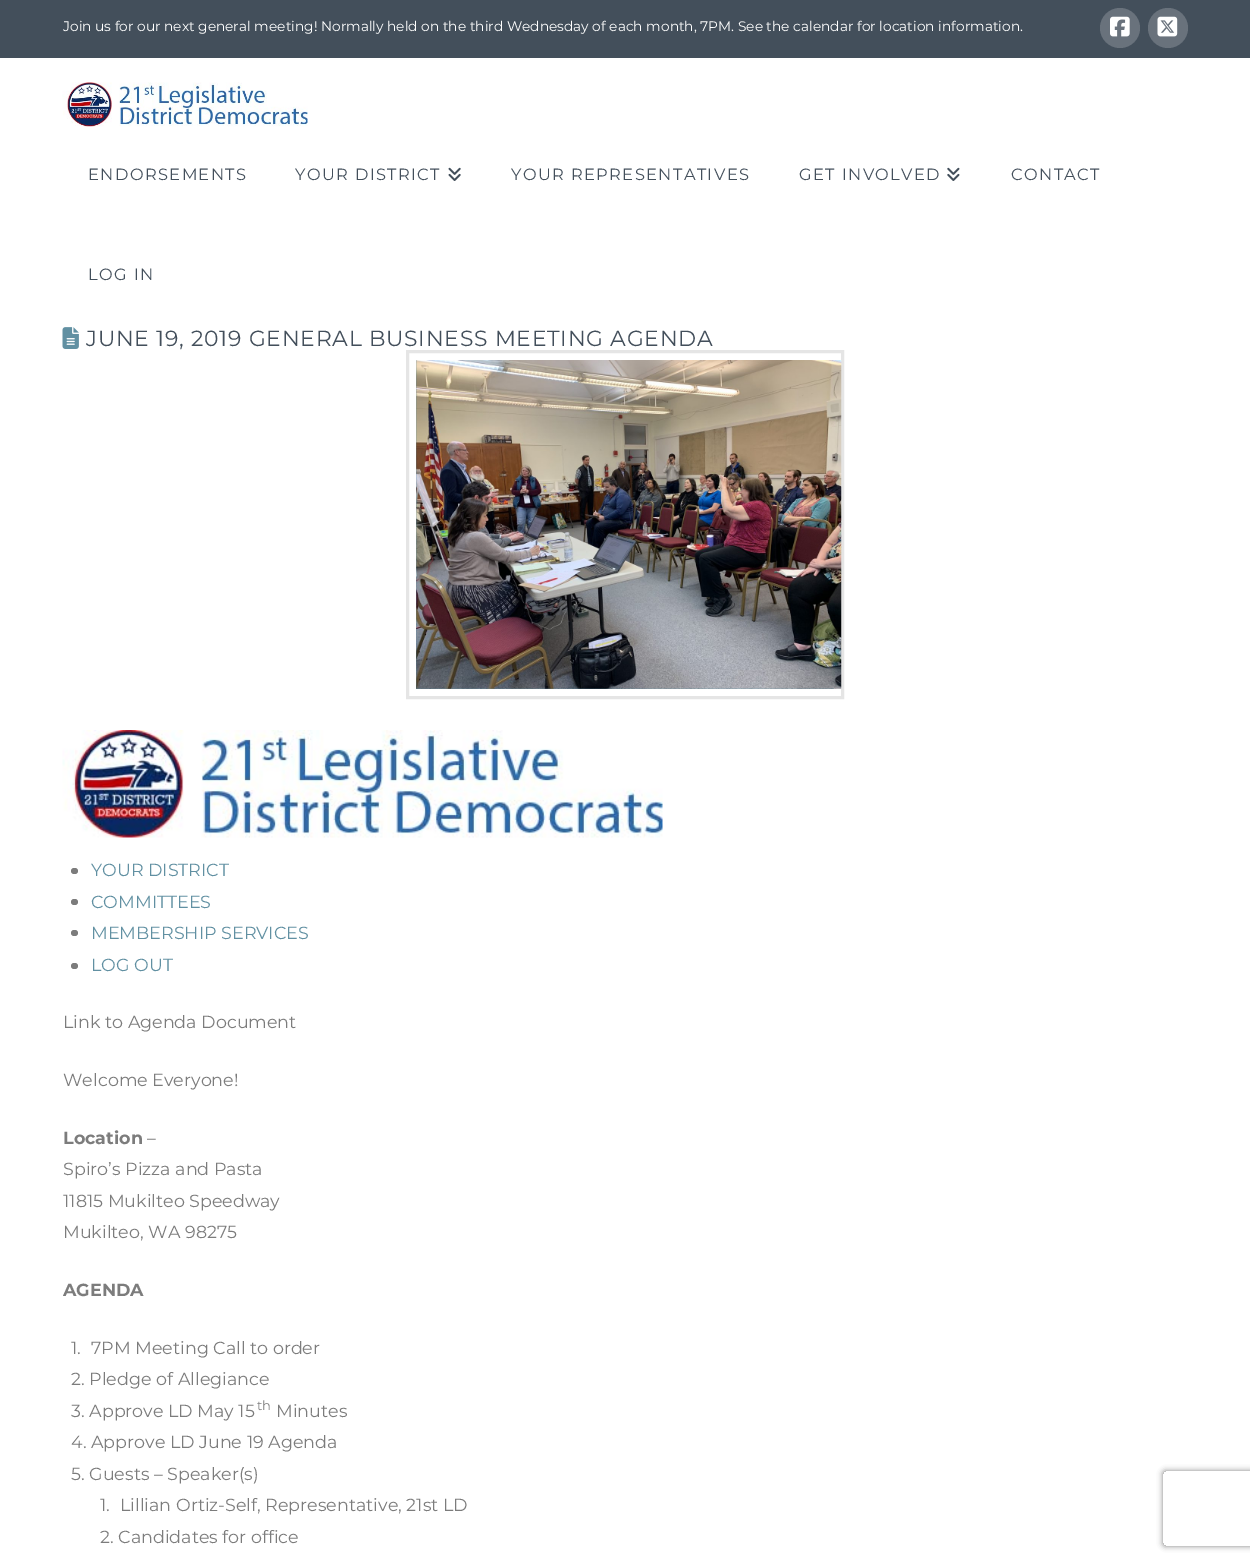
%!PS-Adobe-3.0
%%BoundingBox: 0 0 1250 1563
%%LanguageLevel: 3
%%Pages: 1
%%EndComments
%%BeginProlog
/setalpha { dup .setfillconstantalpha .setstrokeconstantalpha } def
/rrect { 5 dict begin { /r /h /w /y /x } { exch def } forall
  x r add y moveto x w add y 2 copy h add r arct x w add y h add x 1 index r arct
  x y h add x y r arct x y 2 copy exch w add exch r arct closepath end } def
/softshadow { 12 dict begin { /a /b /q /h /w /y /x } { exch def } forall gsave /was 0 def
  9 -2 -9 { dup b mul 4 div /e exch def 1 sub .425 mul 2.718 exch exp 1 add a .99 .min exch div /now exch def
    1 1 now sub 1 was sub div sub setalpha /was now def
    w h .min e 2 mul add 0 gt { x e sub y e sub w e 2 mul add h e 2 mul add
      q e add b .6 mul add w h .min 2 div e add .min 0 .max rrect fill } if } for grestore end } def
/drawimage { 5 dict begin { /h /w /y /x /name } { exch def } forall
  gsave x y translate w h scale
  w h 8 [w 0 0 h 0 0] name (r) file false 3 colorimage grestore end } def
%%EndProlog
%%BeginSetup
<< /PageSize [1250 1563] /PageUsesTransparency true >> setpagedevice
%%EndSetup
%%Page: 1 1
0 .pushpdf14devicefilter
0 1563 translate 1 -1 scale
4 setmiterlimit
1 setgray
0 0 1250 1563 rectfill
0.263 0.31 0.357 setrgbcolor
0 0 1250 58 rectfill
0.412 0.447 0.486 setrgbcolor
newpath 1120 28 20 0 360 arc closepath fill
(images/1.raw) 1110 16 20 21 drawimage
newpath 1168 28 20 0 360 arc closepath fill
(images/2.raw) 1157 16 21 21 drawimage
(images/3.raw) 62 82 246 45 drawimage
(images/4.raw) 448 167 13 14 drawimage
(images/5.raw) 947 167 13 14 drawimage
(images/6.raw) 62 327 17 22 drawimage
0.898 setgray
3 setlinewidth
407.5 351.5 435 346 rectstroke
0.38 0.565 0.635 setrgbcolor
416 360 418 329 rectfill
(images/7.raw) 416 360 426 329 drawimage
(images/8.raw) 62 730 601 108 drawimage
0.486 setgray
71 868 7 6 3 rrect fill
71 899 7 6 3 rrect fill
71 930 7 6 3 rrect fill
71 963 7 6 3 rrect fill
gsave
newpath 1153 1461 moveto 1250 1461 lineto 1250 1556 lineto 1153 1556 lineto closepath 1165.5 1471 moveto 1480.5 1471 lineto 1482 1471 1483 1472 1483 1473.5 curveto 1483 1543.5 lineto 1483 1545 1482 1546 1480.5 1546 curveto 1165.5 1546 lineto 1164 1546 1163 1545 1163 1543.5 curveto 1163 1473.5 lineto 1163 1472 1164 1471 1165.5 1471 curveto closepath eoclip newpath
0.502 setgray
1163 1471 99 75 2.5 3 1 softshadow
grestore
/Montserrat-Regular [13.75 0 0 -13.75 0 0] selectfont
1 setgray
63 31 moveto (Join us for our next general meeting! Normally held on the third Wednesday of each month, 7PM. See the calendar for location information.) show
/Montserrat-Regular [16.25 0 0 -16.25 0 0] selectfont
0.263 0.31 0.357 setrgbcolor
88 180 moveto 1.4 0 (ENDORSEMENTS) ashow
295 180 moveto 1.4 0 (YOUR DISTRICT) ashow
511 180 moveto 1.4 0 (YOUR REPRESENTATIVES) ashow
799 180 moveto 1.4 0 (GET INVOLVED) ashow
1011 180 moveto 1.4 0 (CONTACT) ashow
88 280 moveto 1.4 0 (LOG IN) ashow
/Montserrat-Regular [21.9 0 0 -21.9 0 0] selectfont
86 346 moveto 0.75 0 (JUNE 19, 2019 GENERAL BUSINESS MEETING AGENDA) ashow
/Montserrat-Regular [17.5 0 0 -17.5 0 0] selectfont
0.38 0.565 0.635 setrgbcolor
91 876 moveto (YOUR DISTRICT) show
91 908 moveto (COMMITTEES) show
91 939 moveto (MEMBERSHIP SERVICES) show
91 971 moveto (LOG OUT) show
0.486 setgray
63 1028 moveto (Link to Agenda Document) show
63 1086 moveto (Welcome Everyone!) show
/Montserrat-Bold [17.5 0 0 -17.5 0 0] selectfont
63 1144 moveto (Location) show
/Montserrat-Regular [17.5 0 0 -17.5 0 0] selectfont
147 1144 moveto (–) show
63 1175 moveto (Spiro’s Pizza and Pasta) show
63 1207 moveto (11815 Mukilteo Speedway) show
63 1238 moveto (Mukilteo, WA 98275) show
/Montserrat-Bold [17.5 0 0 -17.5 0 0] selectfont
63 1296 moveto (AGENDA) show
/Montserrat-Regular [17.5 0 0 -17.5 0 0] selectfont
71 1354 moveto (1.) show
91 1354 moveto (7PM Meeting Call to order) show
71 1385 moveto (2. Pledge of Allegiance) show
71 1417 moveto (3. Approve LD May 15) show
/Montserrat-Regular [13 0 0 -13 0 0] selectfont
257 1410 moveto (th) show
/Montserrat-Regular [17.5 0 0 -17.5 0 0] selectfont
276 1417 moveto (Minutes) show
71 1448 moveto (4. Approve LD June 19 Agenda) show
71 1480 moveto (5. Guests – Speaker\(s\)) show
100 1511 moveto (1.) show
120 1511 moveto (Lillian Ortiz-Self, Representative, 21st LD) show
100 1543 moveto (2. Candidates for office) show
.poppdf14devicefilter showpage
%%EOF
